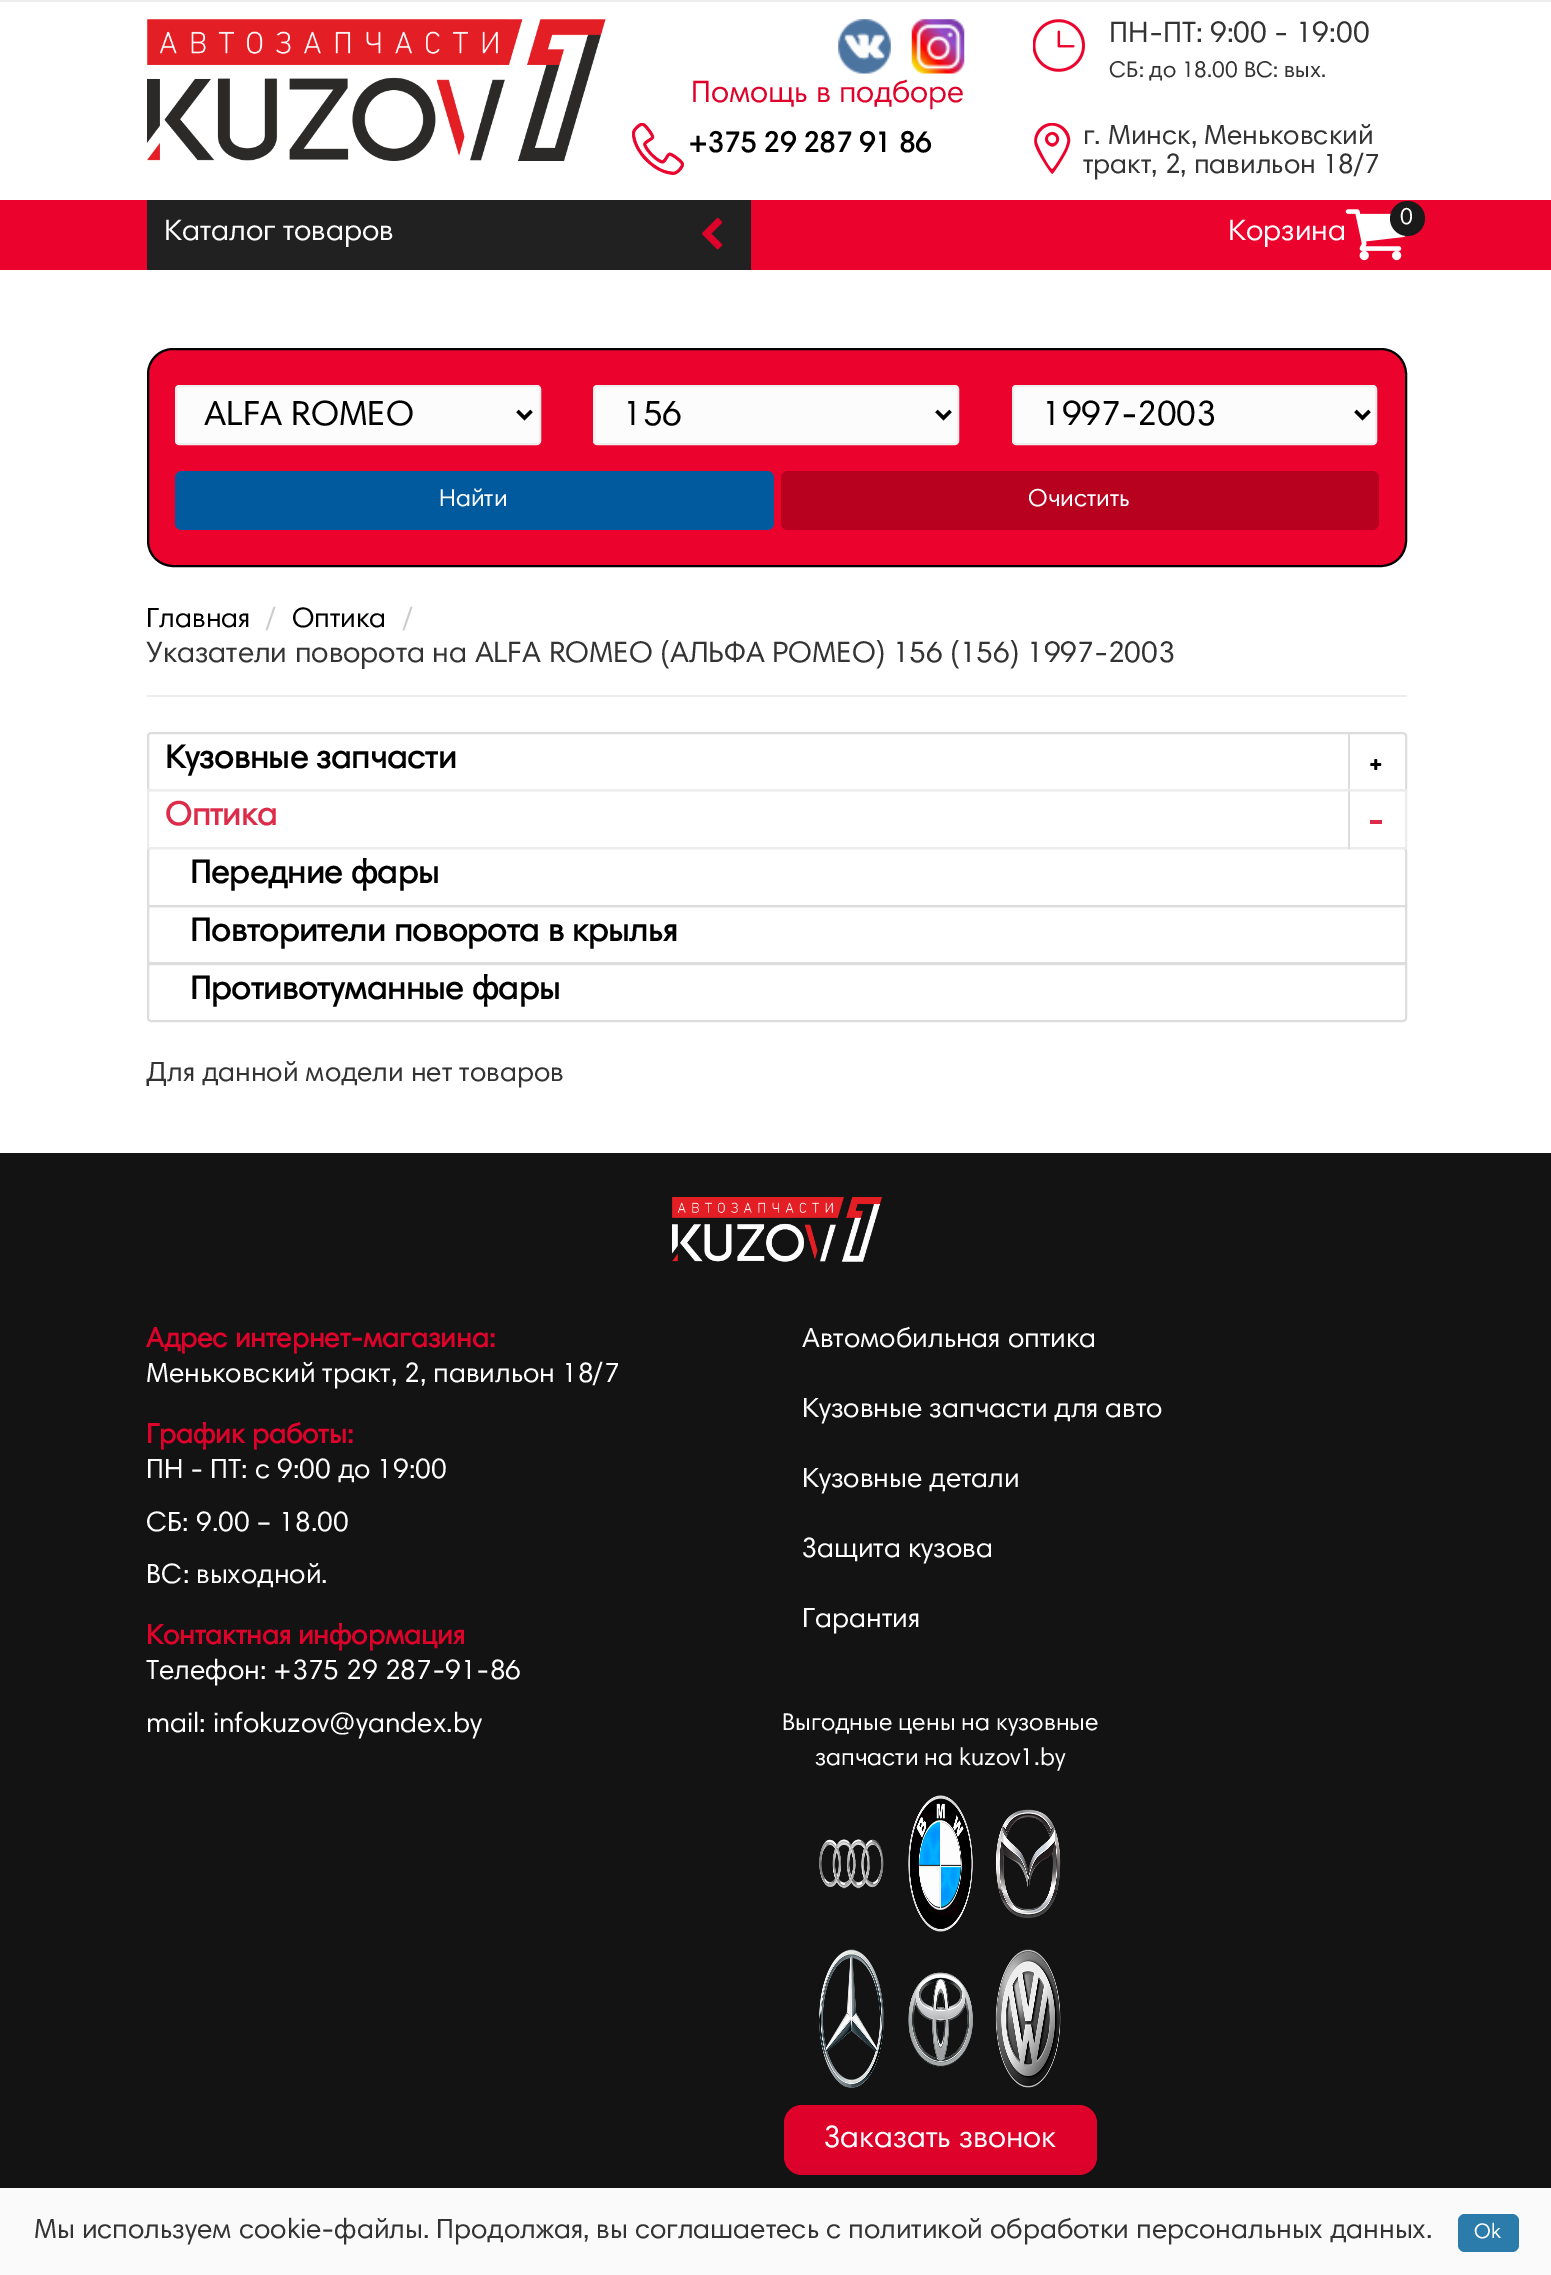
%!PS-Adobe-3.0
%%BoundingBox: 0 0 1551 2275
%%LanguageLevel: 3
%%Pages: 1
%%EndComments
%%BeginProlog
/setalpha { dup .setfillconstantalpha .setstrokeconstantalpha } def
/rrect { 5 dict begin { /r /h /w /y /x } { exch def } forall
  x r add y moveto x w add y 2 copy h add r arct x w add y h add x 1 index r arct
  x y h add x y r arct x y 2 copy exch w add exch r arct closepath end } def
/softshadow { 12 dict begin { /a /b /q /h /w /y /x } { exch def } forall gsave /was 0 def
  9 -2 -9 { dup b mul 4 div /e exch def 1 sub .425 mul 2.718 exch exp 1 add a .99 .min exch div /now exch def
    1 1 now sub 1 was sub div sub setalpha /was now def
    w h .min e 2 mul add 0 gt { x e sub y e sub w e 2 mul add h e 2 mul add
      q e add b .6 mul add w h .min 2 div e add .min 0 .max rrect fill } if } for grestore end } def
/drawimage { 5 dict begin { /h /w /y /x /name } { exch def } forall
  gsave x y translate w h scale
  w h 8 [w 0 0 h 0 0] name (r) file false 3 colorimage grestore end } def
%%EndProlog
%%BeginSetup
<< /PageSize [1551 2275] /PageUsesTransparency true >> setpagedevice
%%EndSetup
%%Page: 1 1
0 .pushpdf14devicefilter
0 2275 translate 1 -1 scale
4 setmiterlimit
1 setgray
0 0 1551 2275 rectfill
0.929 setgray
0 0 1551 2 rectfill
(images/1.raw) 147 19 459 142 drawimage
(images/2.raw) 1033 19 52 53 drawimage
(images/3.raw) 838 19 53 55 drawimage
(images/4.raw) 911 19 54 55 drawimage
(images/5.raw) 632 123 52 52 drawimage
(images/6.raw) 1034 123 37 51 drawimage
0.922 0.008 0.176 setrgbcolor
0 200 1551 70 rectfill
0.129 setgray
147 200 604 70 rectfill
(images/7.raw) 702 217 21 33 drawimage
(images/8.raw) 1345 209 61 52 drawimage
0.102 setgray
newpath 1407.5 218.5 17.5 0 360 arc closepath fill
0.922 0.008 0.176 setrgbcolor
148 349 1258 217 25 rrect gsave fill grestore
0 setgray
2 setlinewidth
stroke
0.988 setgray
176 386 364 58 3 rrect gsave fill grestore
0.933 setgray
stroke
0 setgray
3.5 setlinewidth
newpath 517.5 411 moveto 524.5 418 lineto 531.5 411 lineto stroke
0.988 setgray
594 386 364 58 3 rrect gsave fill grestore
0.933 setgray
2 setlinewidth
stroke
0 setgray
3.5 setlinewidth
newpath 936.5 411 moveto 943.5 418 lineto 950.5 411 lineto stroke
0.988 setgray
1013 386 363 58 3 rrect gsave fill grestore
0.933 setgray
2 setlinewidth
stroke
0 setgray
3.5 setlinewidth
newpath 1355.5 411 moveto 1362.5 418 lineto 1369.5 411 lineto stroke
0 0.353 0.616 setrgbcolor
175 471 599 59 7 rrect fill
0.722 0 0.122 setrgbcolor
781 471 598 59 7 rrect fill
0.929 setgray
147 695 1260 2 rectfill
0.867 setgray
2 setlinewidth
newpath 151 733 moveto 1403 733 lineto 1404.5 733 1406 734.5 1406 736 curveto 1406 790 lineto 148 790 lineto 148 736 lineto 148 734.5 149.5 733 151 733 curveto closepath stroke
1348 733 2 58 rectfill
(images/9.raw) 1370 759 12 11 drawimage
newpath 151 848 moveto 1403 848 lineto 1404.5 848 1406 849.5 1406 851 curveto 1406 906 lineto 148 906 lineto 148 851 lineto 148 849.5 149.5 848 151 848 curveto closepath stroke
0.929 setgray
148 790 1258 58 rectstroke
0.867 setgray
1348 791 2 58 rectfill
0.867 0.173 0.29 setrgbcolor
1370 820 12 4 rectfill
0.867 setgray
148 906 1258 57 rectstroke
1 setgray
newpath 148 964 moveto 1406 964 lineto 1406 1018 lineto 1406 1019.5 1404.5 1021 1403 1021 curveto 151 1021 lineto 149.5 1021 148 1019.5 148 1018 curveto closepath gsave fill grestore
0.867 setgray
stroke
0.075 setgray
0 1153 1551 1035 rectfill
(images/10.raw) 672 1197 210 65 drawimage
(images/11.raw) 819 1839 65 50 drawimage
(images/12.raw) 908 1795 65 137 drawimage
(images/13.raw) 995 1809 66 109 drawimage
(images/14.raw) 819 1949 65 139 drawimage
(images/15.raw) 908 1972 65 95 drawimage
(images/16.raw) 995 1949 66 139 drawimage
0.871 0.008 0.169 setrgbcolor
784 2105 313 70 18 rrect fill
0 setgray
0 2188 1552 87 0 13 0.2 softshadow
0.98 setgray
0 2188 1551 87 rectfill
0.169 0.486 0.671 setrgbcolor
1458 2214 61 38 7 rrect fill
/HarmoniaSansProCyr-Regular [29.75 0 0 -29.75 0 0] selectfont
0.2 setgray
1109 42 moveto (ПН-ПТ: 9:00 - 19:00) show
/HarmoniaSansProCyr-Regular [22.75 0 0 -22.75 0 0] selectfont
1109 77 moveto (СБ: до 18.00 ВС: вых.) show
/HarmoniaSansProCyr-Regular [31 0 0 -31 0 0] selectfont
0.871 0.008 0.169 setrgbcolor
691 102 moveto (Помощь в подборе) show
/HarmoniaSansProCyr-Bold [28.9 0 0 -28.9 0 0] selectfont
0 setgray
688 152 moveto (+375 29 287 91 86) show
/HarmoniaSansProCyr-Regular [28 0 0 -28 0 0] selectfont
0.2 setgray
1083 144 moveto (г. Минск, Меньковский) show
1083 173 moveto (тракт, 2, павильон 18/7) show
/HarmoniaSansProCyr-Regular [29.75 0 0 -29.75 0 0] selectfont
1 setgray
164 240 moveto (Каталог товаров) show
1228 240 moveto (Корзина) show
/HarmoniaSansProCyr-Regular [23 0 0 -23 0 0] selectfont
1400 224 moveto (0) show
/HarmoniaSansProCyr-Regular [35 0 0 -35 0 0] selectfont
0 setgray
204 425 moveto (ALFA ROMEO) show
623 425 moveto (156) show
1042 425 moveto (1997-2003) show
/HarmoniaSansProCyr-Regular [24.5 0 0 -24.5 0 0] selectfont
1 setgray
439 506 moveto (Найти) show
1028 506 moveto (Очистить) show
/HarmoniaSansProCyr-Regular [28 0 0 -28 0 0] selectfont
0.8 setgray
403 627 moveto (/) show
/HarmoniaSansProCyr-Regular [29.75 0 0 -29.75 0 0] selectfont
0.2 setgray
146 662 moveto (Указатели поворота на ALFA ROMEO \(АЛЬФА РОМЕО\) 156 \(156\) 1997-2003) show
/HarmoniaSansProCyr-Regular [28 0 0 -28 0 0] selectfont
0 setgray
146 627 moveto (Главная) show
0.8 setgray
266 627 moveto (/) show
0 setgray
292 627 moveto (Оптика) show
/HarmoniaSansProCyr-Bold [33.25 0 0 -33.25 0 0] selectfont
165 768 moveto (Кузовные запчасти) show
0.867 0.173 0.29 setrgbcolor
165 825 moveto (Оптика) show
0 setgray
190 883 moveto (Передние фары) show
190 941 moveto (Повторители поворота в крылья) show
190 999 moveto (Противотуманные фары) show
/HarmoniaSansProCyr-Regular [28 0 0 -28 0 0] selectfont
0.2 setgray
146 1081 moveto (Для данной модели нет товаров) show
/HarmoniaSansProCyr-Bold [28 0 0 -28 0 0] selectfont
0.871 0.008 0.169 setrgbcolor
146 1347 moveto (Адрес интернет-магазина:) show
/HarmoniaSansProCyr-Regular [28 0 0 -28 0 0] selectfont
1 setgray
146 1382 moveto (Меньковский тракт, 2, павильон 18/7) show
/HarmoniaSansProCyr-Bold [28 0 0 -28 0 0] selectfont
0.871 0.008 0.169 setrgbcolor
146 1443 moveto (График работы:) show
/HarmoniaSansProCyr-Regular [28 0 0 -28 0 0] selectfont
1 setgray
146 1478 moveto (ПН - ПТ: с 9:00 до 19:00) show
146 1531 moveto (СБ: 9.00 – 18.00) show
146 1583 moveto (ВС: выходной.) show
/HarmoniaSansProCyr-Bold [28 0 0 -28 0 0] selectfont
0.871 0.008 0.169 setrgbcolor
146 1644 moveto (Контактная информация) show
/HarmoniaSansProCyr-Regular [28 0 0 -28 0 0] selectfont
1 setgray
146 1679 moveto (Телефон: +375 29 287-91-86) show
146 1732 moveto (mail: infokuzov@yandex.by) show
802 1347 moveto (Автомобильная оптика) show
802 1417 moveto (Кузовные запчасти для авто) show
802 1487 moveto (Кузовные детали) show
802 1557 moveto (Защита кузова) show
802 1627 moveto (Гарантия) show
/HarmoniaSansProCyr-Regular [24.5 0 0 -24.5 0 0] selectfont
782 1730 moveto (Выгодные цены на кузовные) show
815 1765 moveto (запчасти на kuzov1.by) show
/HarmoniaSansProCyr-Regular [31 0 0 -31 0 0] selectfont
824 2147 moveto (Заказать звонок) show
/HarmoniaSansProCyr-Regular [28 0 0 -28 0 0] selectfont
0.2 setgray
34 2238 moveto (Мы используем cookie-файлы. Продолжая, вы соглашаетесь с политикой обработки персональных данных.) show
/HarmoniaSansProCyr-Regular [21 0 0 -21 0 0] selectfont
1 setgray
1474 2238 moveto (Ok) show
.poppdf14devicefilter showpage
%%EOF
